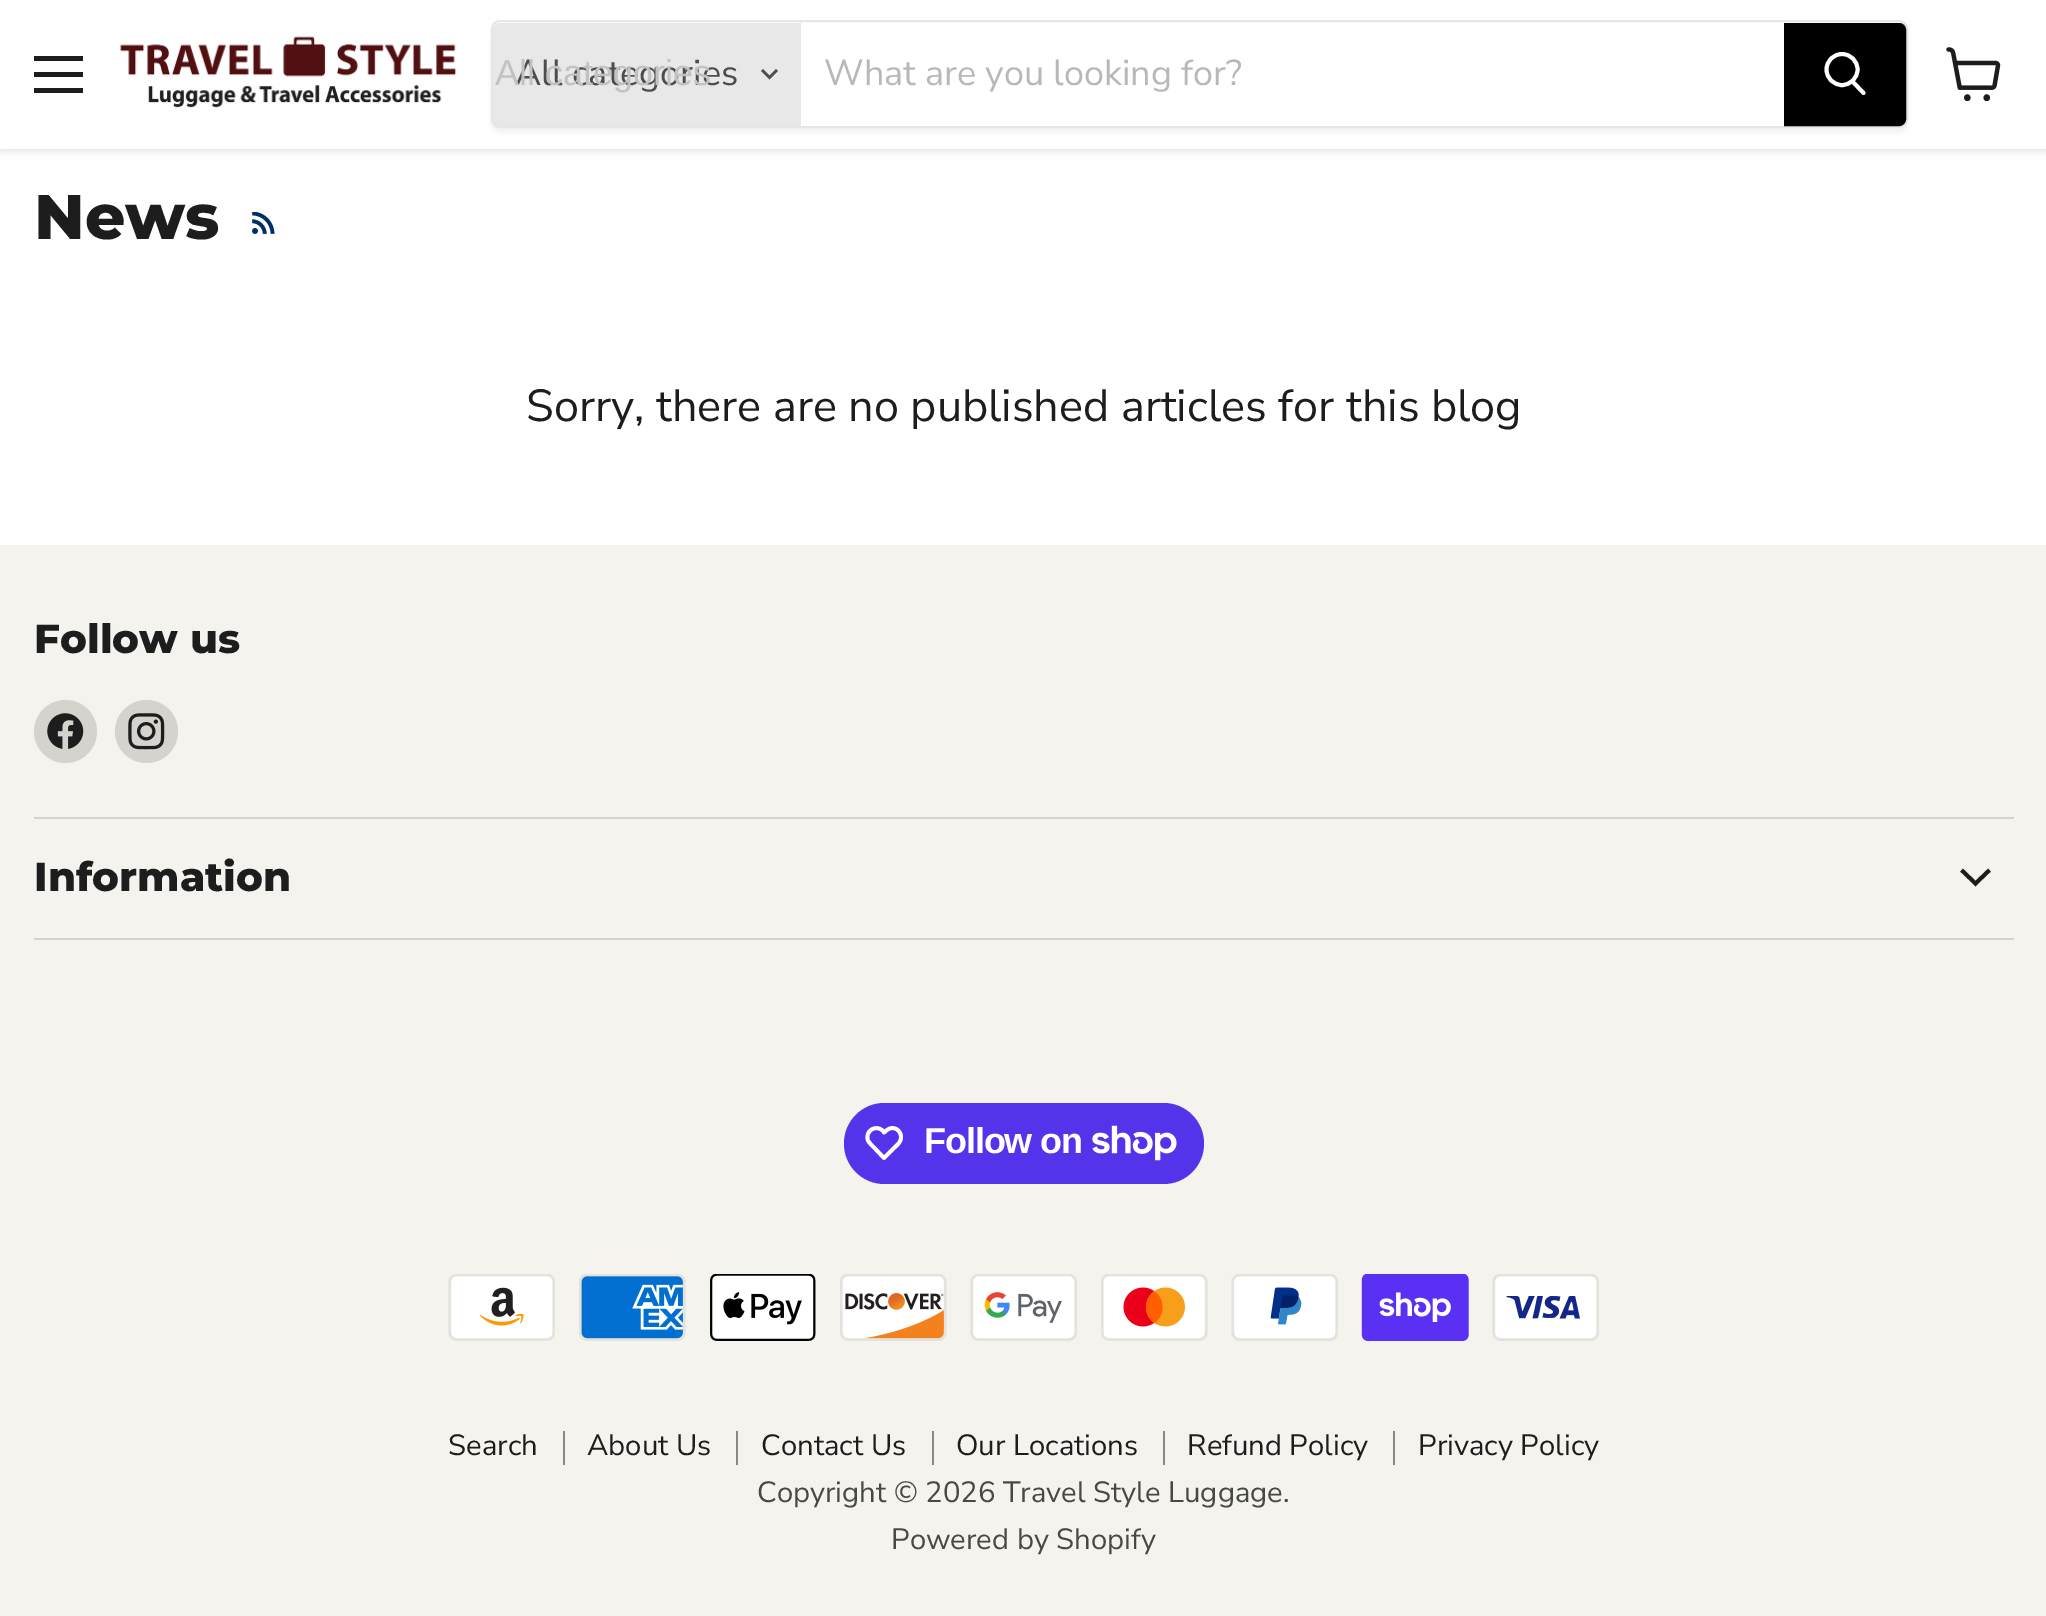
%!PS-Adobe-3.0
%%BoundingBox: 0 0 2046 1616
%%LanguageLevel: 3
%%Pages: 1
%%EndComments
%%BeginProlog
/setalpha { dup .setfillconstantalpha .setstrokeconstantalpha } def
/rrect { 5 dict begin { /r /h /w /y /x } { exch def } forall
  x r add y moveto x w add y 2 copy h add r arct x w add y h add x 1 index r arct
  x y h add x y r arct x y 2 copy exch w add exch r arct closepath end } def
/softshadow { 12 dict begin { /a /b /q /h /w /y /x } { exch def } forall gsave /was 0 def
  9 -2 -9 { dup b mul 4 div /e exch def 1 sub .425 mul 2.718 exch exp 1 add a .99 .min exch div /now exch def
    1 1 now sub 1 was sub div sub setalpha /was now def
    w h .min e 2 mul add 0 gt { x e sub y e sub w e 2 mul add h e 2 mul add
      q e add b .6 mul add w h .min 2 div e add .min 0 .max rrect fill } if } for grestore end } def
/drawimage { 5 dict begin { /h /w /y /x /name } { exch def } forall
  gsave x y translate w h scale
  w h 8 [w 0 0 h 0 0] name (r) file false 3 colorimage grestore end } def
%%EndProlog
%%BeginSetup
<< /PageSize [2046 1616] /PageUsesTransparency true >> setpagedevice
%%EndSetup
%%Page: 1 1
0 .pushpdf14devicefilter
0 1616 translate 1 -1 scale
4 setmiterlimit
1 setgray
0 0 2046 1616 rectfill
0.502 setgray
0 2 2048 149 0 4.5 0.25 softshadow
1 setgray
0 0 2046 149 rectfill
0.114 setgray
34 56 49 5 rectfill
34 72 49 5 rectfill
34 88 49 5 rectfill
(images/1.raw) 120 36 336 72 drawimage
gsave
newpath 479 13 moveto 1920 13 lineto 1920 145 lineto 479 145 lineto closepath 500 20 moveto 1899 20 lineto 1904 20 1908 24 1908 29 curveto 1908 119 lineto 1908 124 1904 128 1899 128 curveto 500 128 lineto 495 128 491 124 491 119 curveto 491 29 lineto 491 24 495 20 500 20 curveto closepath eoclip newpath
0.502 setgray
491 25 1417 108 9 3.5 0.11 softshadow
grestore
0.902 setgray
2 setlinewidth
492 21 1415 106 8 rrect stroke
0.91 setgray
newpath 500 23 moveto 801 23 lineto 801 126 lineto 500 126 lineto 496 126 493 123 493 119 curveto 493 30 lineto 493 26 496 23 500 23 curveto closepath fill
0.302 setgray
2.8 setlinewidth
2 setlinecap
newpath 769.5 77.5 moveto 776 71 lineto 769.5 77.5 moveto 763 71 lineto stroke
0 setgray
newpath 1785 24 moveto 1899 24 lineto 1902.5 24 1905 26.5 1905 30 curveto 1905 119 lineto 1905 122.5 1902.5 125 1899 125 curveto 1785 125 lineto closepath gsave fill grestore
2 setlinewidth
0 setlinecap
stroke
1 setgray
3.9 setlinewidth
1 setlinecap
newpath 1863.5 93 moveto 1853 82 lineto stroke
0 setlinecap
newpath 1842 69.5 15.5 0 360 arc closepath stroke
(images/2.raw) 1946 47 55 54 drawimage
(images/3.raw) 252 212 23 22 drawimage
0.961 0.953 0.929 setrgbcolor
0 545 2046 1071 rectfill
0.835 0.827 0.808 setrgbcolor
34 817 1980 2 rectfill
newpath 65.5 731.5 31.5 0 360 arc closepath fill
(images/4.raw) 47 713 37 36 drawimage
newpath 146.5 731.5 31.5 0 360 arc closepath fill
(images/5.raw) 128 713 37 37 drawimage
34 938 1980 2 rectfill
0.114 setgray
2 setlinecap
newpath 1975.5 883.5 moveto 1988 871.5 lineto 1975.5 883.5 moveto 1963 871.5 lineto stroke
0.329 0.2 0.922 setrgbcolor
844 1103 360 81 40.5 rrect fill
1 setgray
3.8 setlinewidth
0 setlinecap
1 setlinejoin
newpath 882.5 1130.5 moveto 884 1132.5 lineto 886 1131 887.5 1129 890 1128.5 curveto 896.5 1126 903 1133.5 900.5 1140 curveto 899.5 1143.5 896 1146 894 1148 curveto 884 1158 lineto 874.5 1148 lineto 872.5 1146 869.5 1143.5 868 1140.5 curveto 864.5 1131.5 875.5 1124 882.5 1130.5 curveto closepath stroke
(images/6.raw) 1092 1125 85 36 drawimage
(images/7.raw) 448 1274 107 67 drawimage
(images/8.raw) 579 1274 107 67 drawimage
(images/9.raw) 710 1274 106 67 drawimage
(images/10.raw) 840 1274 107 67 drawimage
(images/11.raw) 970 1274 107 67 drawimage
(images/12.raw) 1101 1274 107 67 drawimage
(images/13.raw) 1231 1274 107 67 drawimage
(images/14.raw) 1361 1274 108 67 drawimage
(images/15.raw) 1492 1274 107 67 drawimage
0.537 0.533 0.522 setrgbcolor
563 1431 2 34 rectfill
736 1431 2 34 rectfill
932 1431 2 34 rectfill
1163 1431 2 34 rectfill
1393 1431 2 34 rectfill
/NunitoSans-Regular [36 0 0 -36 0 0] selectfont
0.302 setgray
515 85 moveto (All categories) show
/LiberationSans-Regular [36 0 0 -36 0 0] selectfont
0.761 setgray
495 85 moveto (All categories) show
/NunitoSans-Regular [36 0 0 -36 0 0] selectfont
0.722 setgray
824 85 moveto (What are you looking for?) show
/Montserrat-ExtraBold [63 0 0 -63 0 0] selectfont
0.114 setgray
34 239 moveto (News) show
/NunitoSans-Regular [45 0 0 -45 0 0] selectfont
526 421 moveto (Sorry, there are no published articles for this blog) show
/Montserrat-ExtraBold [40.5 0 0 -40.5 0 0] selectfont
34 653 moveto (Follow us) show
34 891 moveto (Information) show
/LiberationSans-Bold [36 0 0 -36 0 0] selectfont
1 setgray
924 1153 moveto -1.1 0 (Follow on) ashow
/NunitoSans-Regular [29.25 0 0 -29.25 0 0] selectfont
0.114 setgray
448 1455 moveto (Search) show
587 1455 moveto (About Us) show
761 1455 moveto (Contact Us) show
956 1455 moveto (Our Locations) show
1187 1455 moveto (Refund Policy) show
1418 1455 moveto (Privacy Policy) show
0.282 0.282 0.278 setrgbcolor
757 1502 moveto (Copyright © 2026 Travel Style Luggage.) show
891 1549 moveto (Powered by Shopify) show
.poppdf14devicefilter showpage
%%EOF
